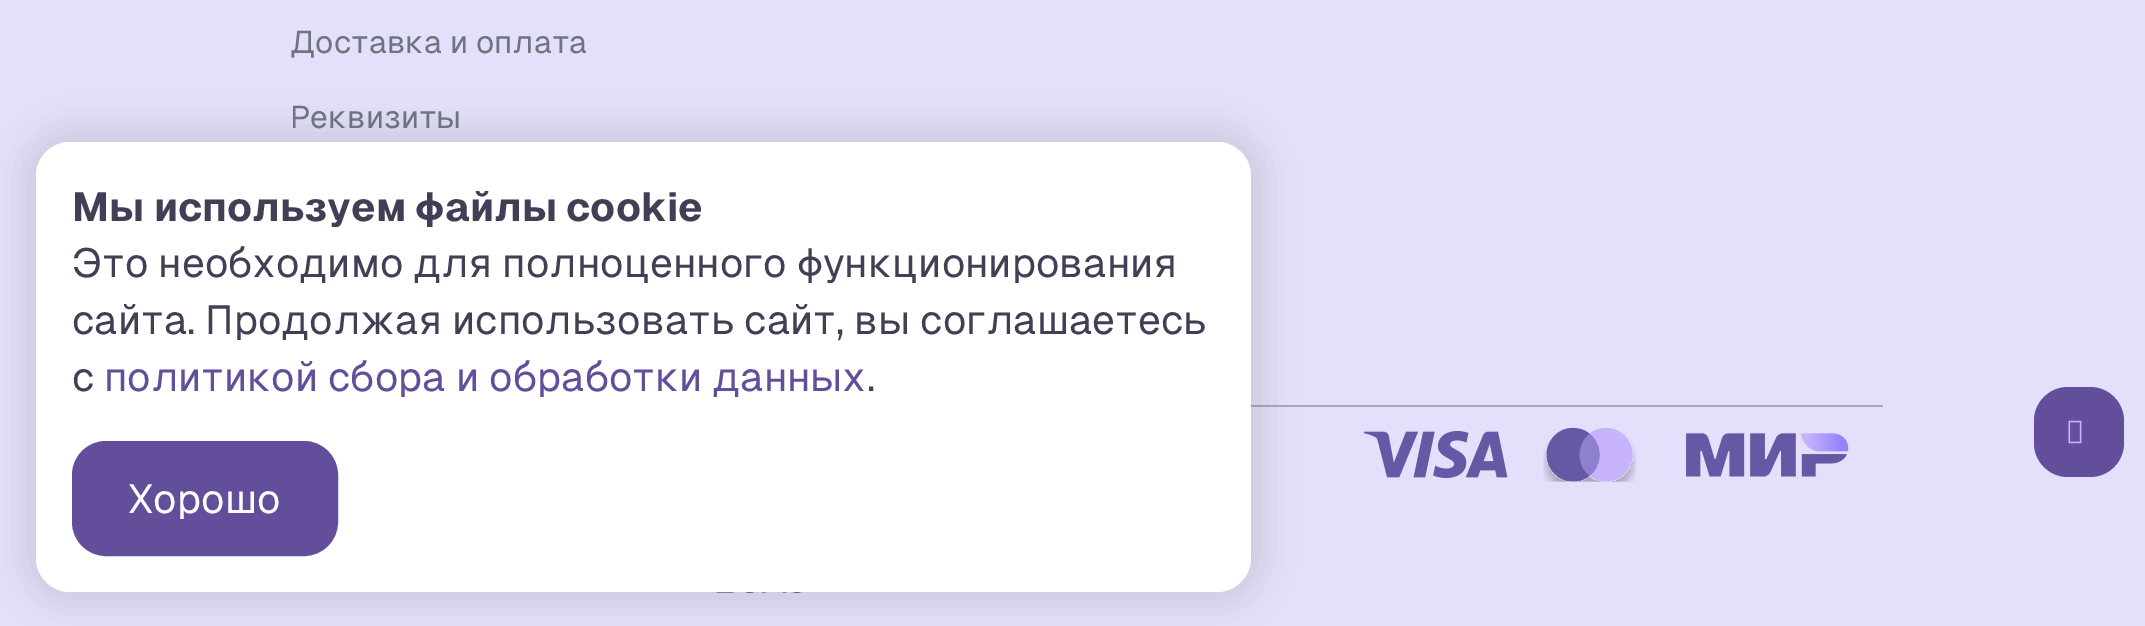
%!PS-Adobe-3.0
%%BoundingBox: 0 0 2145 626
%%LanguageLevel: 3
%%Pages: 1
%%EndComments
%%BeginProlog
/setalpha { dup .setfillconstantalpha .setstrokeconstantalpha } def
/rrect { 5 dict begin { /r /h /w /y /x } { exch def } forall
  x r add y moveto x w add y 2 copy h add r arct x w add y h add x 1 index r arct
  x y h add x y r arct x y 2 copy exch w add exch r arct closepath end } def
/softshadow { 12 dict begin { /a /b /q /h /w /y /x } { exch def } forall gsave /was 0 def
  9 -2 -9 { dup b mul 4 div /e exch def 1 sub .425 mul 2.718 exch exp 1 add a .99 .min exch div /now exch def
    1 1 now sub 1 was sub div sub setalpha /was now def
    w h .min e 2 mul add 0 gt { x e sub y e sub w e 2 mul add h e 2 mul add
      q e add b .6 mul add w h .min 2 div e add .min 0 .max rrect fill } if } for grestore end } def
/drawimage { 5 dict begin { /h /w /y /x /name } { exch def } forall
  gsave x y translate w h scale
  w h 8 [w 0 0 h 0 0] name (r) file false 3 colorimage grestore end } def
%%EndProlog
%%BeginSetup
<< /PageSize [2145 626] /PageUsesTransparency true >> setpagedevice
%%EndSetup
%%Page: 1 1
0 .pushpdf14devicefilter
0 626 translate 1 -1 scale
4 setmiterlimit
0.894 0.875 0.98 setrgbcolor
0 0 2145 626 rectfill
0.675 0.651 0.753 setrgbcolor
1251 405 632 2 rectfill
(images/1.raw) 1364 431 144 47 drawimage
(images/2.raw) 1543 427 93 55 drawimage
(images/3.raw) 1686 433 163 44 drawimage
(images/4.raw) 716 592 86 1 drawimage
0 setgray
23 128 1242 477 47 16 0.1 softshadow
1 setgray
36 142 1215 450 34 rrect fill
0.384 0.306 0.608 setrgbcolor
73 442 264 113 33 rrect gsave fill grestore
2 setlinewidth
stroke
2034 387 90 90 34 rrect fill
(images/5.raw) 2068 420 14 24 drawimage
/Geist-Regular [31.5 0 0 -31.5 0 0] selectfont
0.424 0.459 0.49 setrgbcolor
290 53 moveto (Доставка и оплата) show
290 128 moveto (Реквизиты) show
/Geist-Bold [40.5 0 0 -40.5 0 0] selectfont
0.263 0.239 0.333 setrgbcolor
72 221 moveto (Мы используем файлы cookie) show
/Geist-Regular [40.5 0 0 -40.5 0 0] selectfont
72 277 moveto (Это необходимо для полноценного функционирования) show
72 334 moveto (сайта. Продолжая использовать сайт, вы соглашаетесь) show
72 391 moveto (с) show
0.384 0.306 0.608 setrgbcolor
104 391 moveto (политикой сбора и обработки данных) show
0.263 0.239 0.333 setrgbcolor
867 391 moveto (.) show
1 setgray
128 513 moveto (Хорошо) show
.poppdf14devicefilter showpage
%%EOF
